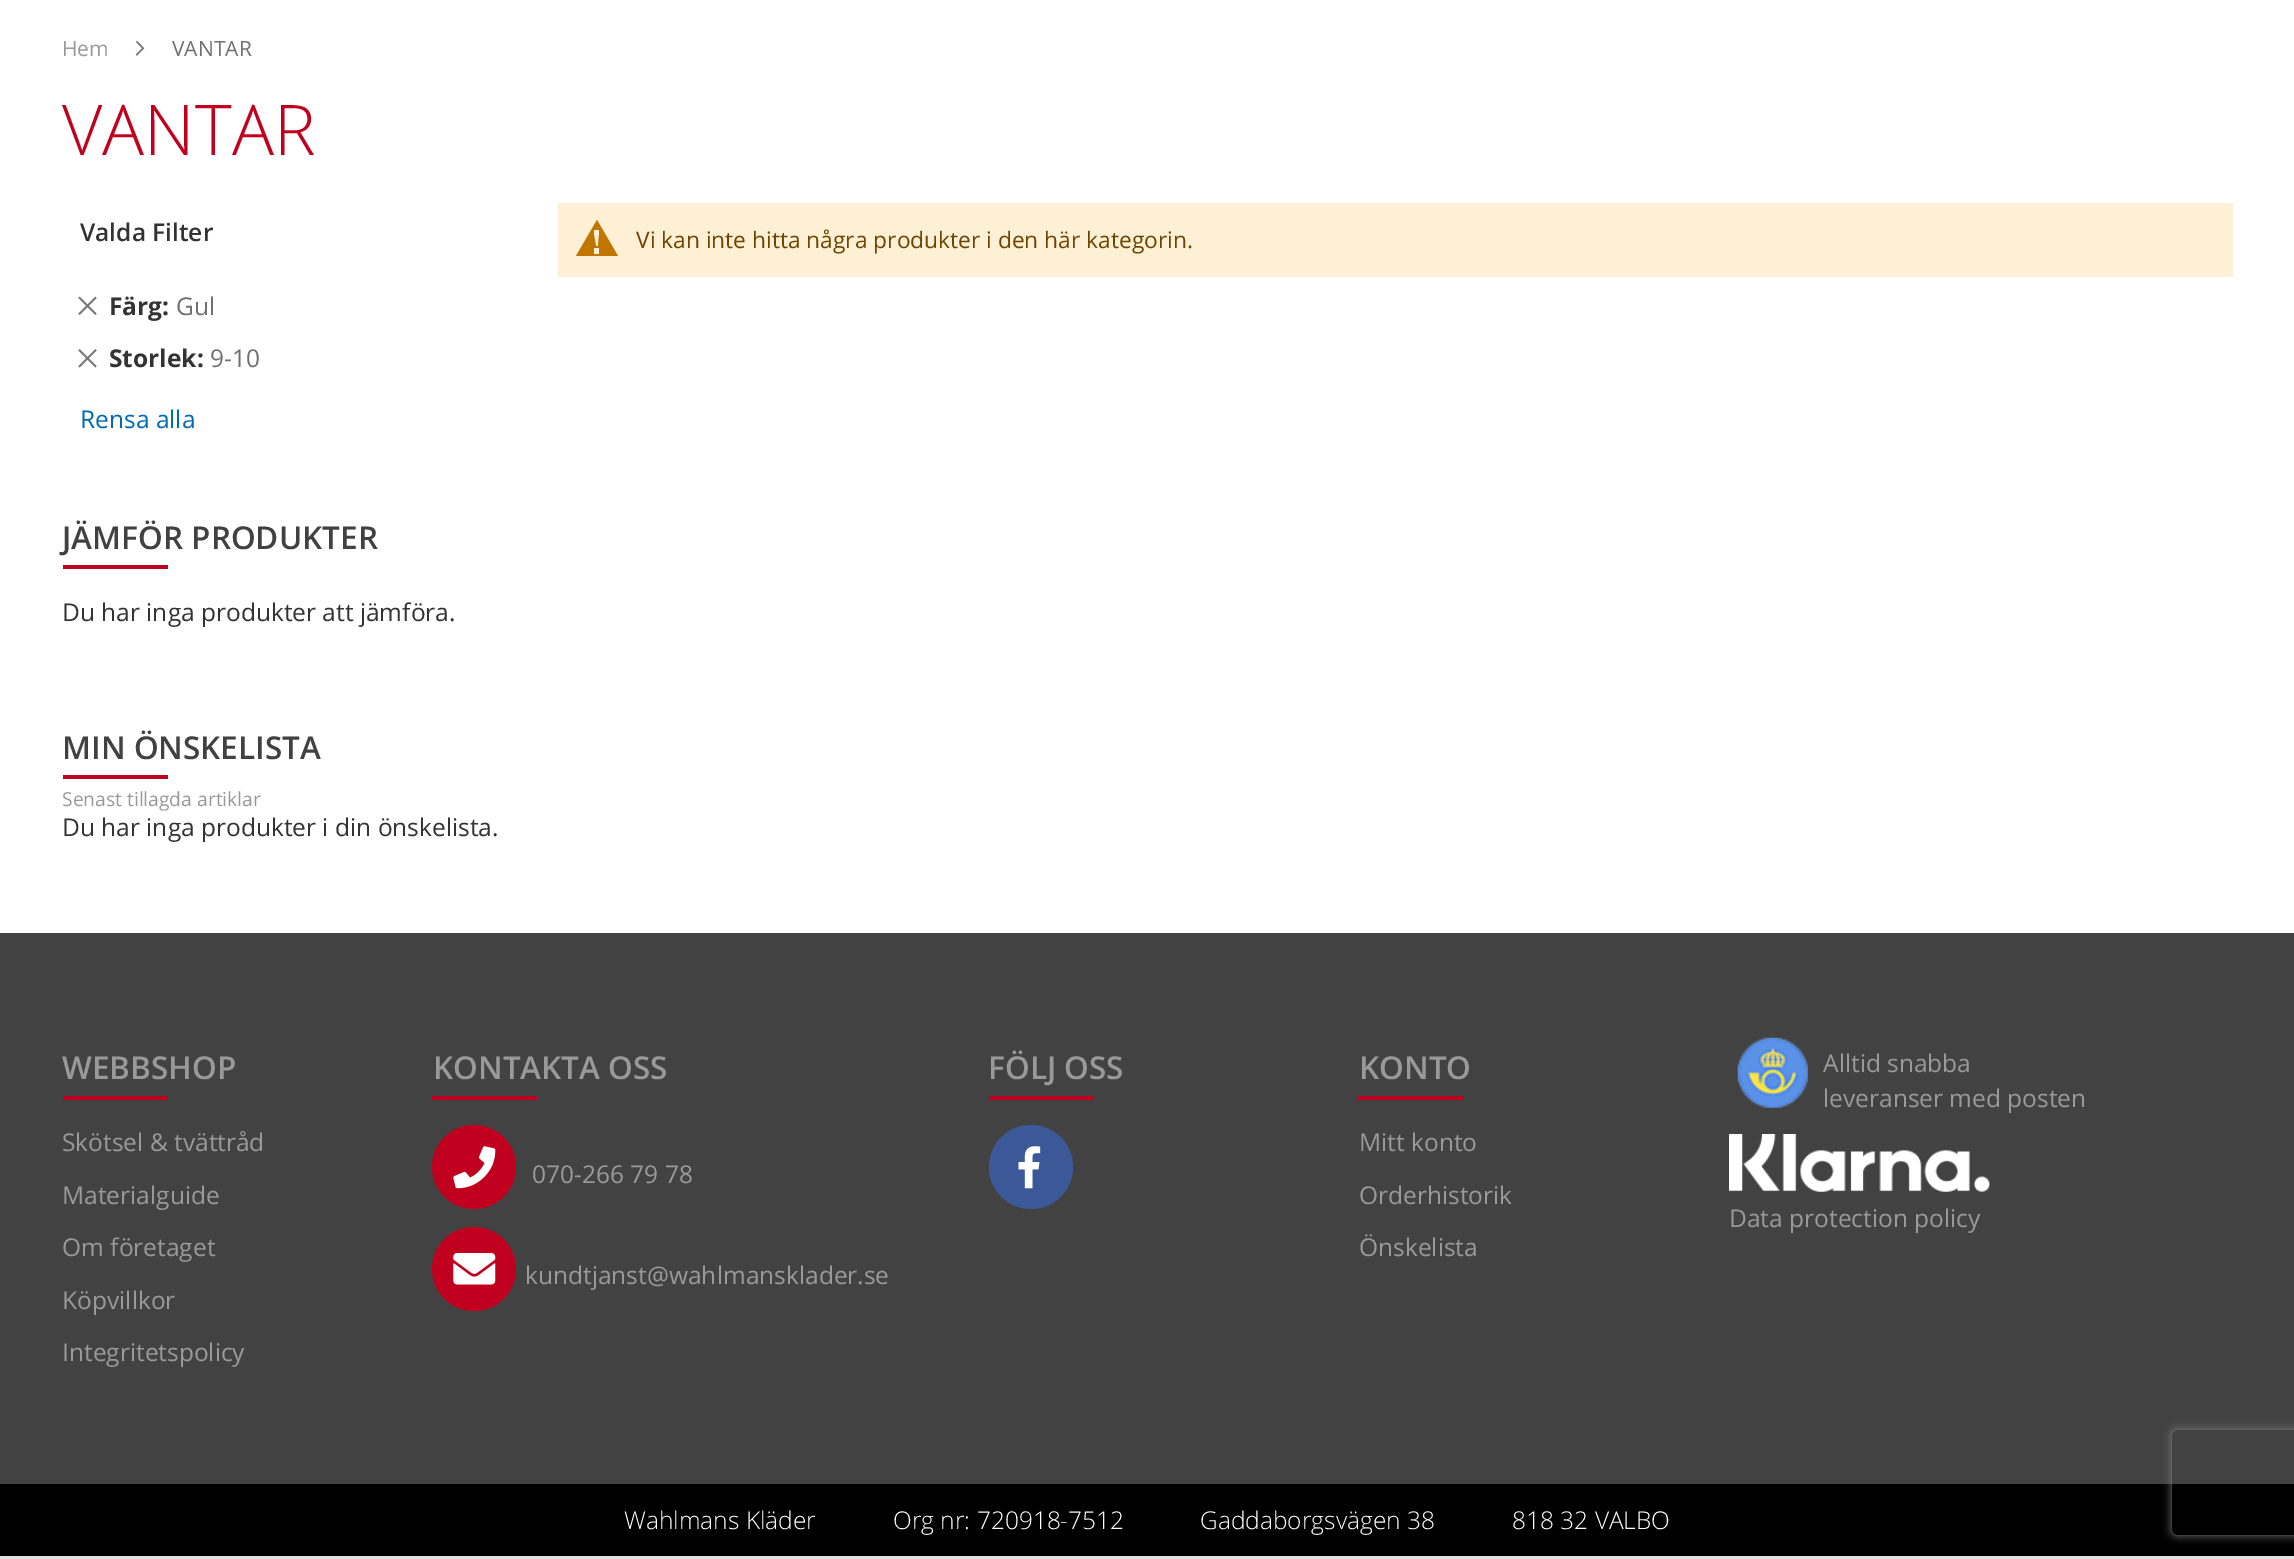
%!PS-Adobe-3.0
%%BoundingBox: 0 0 2294 1559
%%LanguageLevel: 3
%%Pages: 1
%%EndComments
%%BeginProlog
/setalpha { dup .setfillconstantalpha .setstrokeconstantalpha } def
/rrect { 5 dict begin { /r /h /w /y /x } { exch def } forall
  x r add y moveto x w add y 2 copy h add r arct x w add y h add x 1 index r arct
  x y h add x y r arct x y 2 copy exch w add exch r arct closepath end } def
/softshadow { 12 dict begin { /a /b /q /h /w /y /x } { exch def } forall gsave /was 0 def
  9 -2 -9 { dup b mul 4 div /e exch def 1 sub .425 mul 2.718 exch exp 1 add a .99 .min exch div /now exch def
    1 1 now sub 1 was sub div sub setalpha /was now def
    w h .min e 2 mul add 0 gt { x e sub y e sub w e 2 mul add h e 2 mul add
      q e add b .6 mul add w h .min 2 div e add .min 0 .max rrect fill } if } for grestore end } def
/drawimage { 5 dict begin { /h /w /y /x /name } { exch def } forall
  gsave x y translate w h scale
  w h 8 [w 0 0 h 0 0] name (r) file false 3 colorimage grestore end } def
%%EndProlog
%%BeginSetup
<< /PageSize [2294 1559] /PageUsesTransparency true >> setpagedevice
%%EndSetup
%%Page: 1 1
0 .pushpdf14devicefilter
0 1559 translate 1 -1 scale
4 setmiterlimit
1 setgray
0 0 2294 1559 rectfill
(images/1.raw) 135 40 10 16 drawimage
(images/2.raw) 78 296 19 19 drawimage
(images/3.raw) 78 349 19 19 drawimage
0.992 0.941 0.835 setrgbcolor
558 203 1675 74 rectfill
0.753 0.463 0 setrgbcolor
newpath 597 220 moveto 576 256 lineto 618 256 lineto closepath 599 230 moveto 599 235 lineto 598 246 lineto 596 246 lineto 594 235 lineto 594 230 lineto closepath 594 254 moveto 594 248 lineto 599 248 lineto 599 254 lineto closepath fill
0.757 0 0.125 setrgbcolor
63 565 105 4 rectfill
63 775 105 4 rectfill
0.259 setgray
0 933 2294 551 rectfill
0.757 0 0.125 setrgbcolor
63 1096 105 4 rectfill
432 1096 105 4 rectfill
newpath 474 1167 42 0 360 arc closepath fill
(images/4.raw) 453 1146 43 43 drawimage
newpath 474 1269 42 0 360 arc closepath fill
(images/5.raw) 453 1253 43 32 drawimage
989 1096 105 4 rectfill
0.231 0.349 0.6 setrgbcolor
newpath 1031 1167 42 0 360 arc closepath fill
(images/6.raw) 1018 1146 23 43 drawimage
0.757 0 0.125 setrgbcolor
1358 1096 105 4 rectfill
(images/7.raw) 1737 1037 71 71 drawimage
(images/8.raw) 1729 1134 261 58 drawimage
0 setgray
0 1484 2294 72 rectfill
gsave
newpath 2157 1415 moveto 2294 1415 lineto 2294 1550 lineto 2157 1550 lineto closepath 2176 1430 moveto 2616 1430 lineto 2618 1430 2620 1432 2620 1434 curveto 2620 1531 lineto 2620 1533 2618 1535 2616 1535 curveto 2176 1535 lineto 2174 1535 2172 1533 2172 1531 curveto 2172 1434 lineto 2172 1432 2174 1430 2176 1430 curveto closepath eoclip newpath
0.502 setgray
2172 1430 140 105 4 4.5 1 softshadow
grestore
0.882 setgray
0 1556 2294 3 rectfill
/OpenSans-Regular [21 0 0 -21 0 0] selectfont
0.6 setgray
62 56 moveto (Hem) show
0.439 setgray
172 56 moveto (VANTAR) show
/OpenSans-Light [70 0 0 -70 0 0] selectfont
0.757 0 0.125 setrgbcolor
62 155 moveto (VANTAR) show
/OpenSans-SemiBold [24.5 0 0 -24.5 0 0] selectfont
0.2 setgray
80 241 moveto (Valda Filter) show
/OpenSans-Bold [24.5 0 0 -24.5 0 0] selectfont
109 315 moveto (Färg:) show
/OpenSans-Regular [24.5 0 0 -24.5 0 0] selectfont
0.439 setgray
176 315 moveto (Gul) show
/OpenSans-Bold [24.5 0 0 -24.5 0 0] selectfont
0.2 setgray
109 367 moveto (Storlek:) show
/OpenSans-Regular [24.5 0 0 -24.5 0 0] selectfont
0.439 setgray
210 367 moveto (9-10) show
0 0.42 0.706 setrgbcolor
80 428 moveto (Rensa alla) show
/OpenSans-Regular [22.75 0 0 -22.75 0 0] selectfont
0.435 0.267 0 setrgbcolor
636 248 moveto (Vi kan inte hitta några produkter i den här kategorin.) show
/OpenSans-SemiBold [31.5 0 0 -31.5 0 0] selectfont
0.255 setgray
62 549 moveto (JÄMFÖR PRODUKTER) show
/OpenSans-Regular [24.5 0 0 -24.5 0 0] selectfont
0.2 setgray
62 621 moveto (Du har inga produkter att jämföra.) show
/OpenSans-SemiBold [31.5 0 0 -31.5 0 0] selectfont
0.255 setgray
62 759 moveto (MIN ÖNSKELISTA) show
/OpenSans-Regular [19.25 0 0 -19.25 0 0] selectfont
0.6 setgray
62 806 moveto (Senast tillagda artiklar) show
/OpenSans-Regular [24.5 0 0 -24.5 0 0] selectfont
0.2 setgray
62 836 moveto (Du har inga produkter i din önskelista.) show
/OpenSans-SemiBold [31.5 0 0 -31.5 0 0] selectfont
0.6 setgray
62 1079 moveto (WEBBSHOP) show
/OpenSans-Regular [24.5 0 0 -24.5 0 0] selectfont
62 1151 moveto (Skötsel & tvättråd) show
62 1204 moveto (Materialguide) show
62 1256 moveto (Om företaget) show
62 1309 moveto (Köpvillkor) show
62 1361 moveto (Integritetspolicy) show
/OpenSans-SemiBold [31.5 0 0 -31.5 0 0] selectfont
433 1079 moveto (KONTAKTA OSS) show
/OpenSans-Regular [24.5 0 0 -24.5 0 0] selectfont
532 1183 moveto (070-266 79 78) show
525 1284 moveto (kundtjanst@wahlmansklader.se) show
/OpenSans-SemiBold [31.5 0 0 -31.5 0 0] selectfont
988 1079 moveto (FÖLJ OSS) show
1359 1079 moveto (KONTO) show
/OpenSans-Regular [24.5 0 0 -24.5 0 0] selectfont
1359 1151 moveto (Mitt konto) show
1359 1204 moveto (Orderhistorik) show
1359 1256 moveto (Önskelista) show
1823 1072 moveto (Alltid snabba) show
1823 1107 moveto (leveranser med posten) show
1729 1227 moveto (Data protection policy) show
/OpenSans-Light [24.5 0 0 -24.5 0 0] selectfont
1 setgray
624 1529 moveto (Wahlmans Kläder) show
893 1529 moveto (Org nr: 720918-7512) show
1200 1529 moveto (Gaddaborgsvägen 38) show
1512 1529 moveto (818 32 VALBO) show
.poppdf14devicefilter showpage
%%EOF
